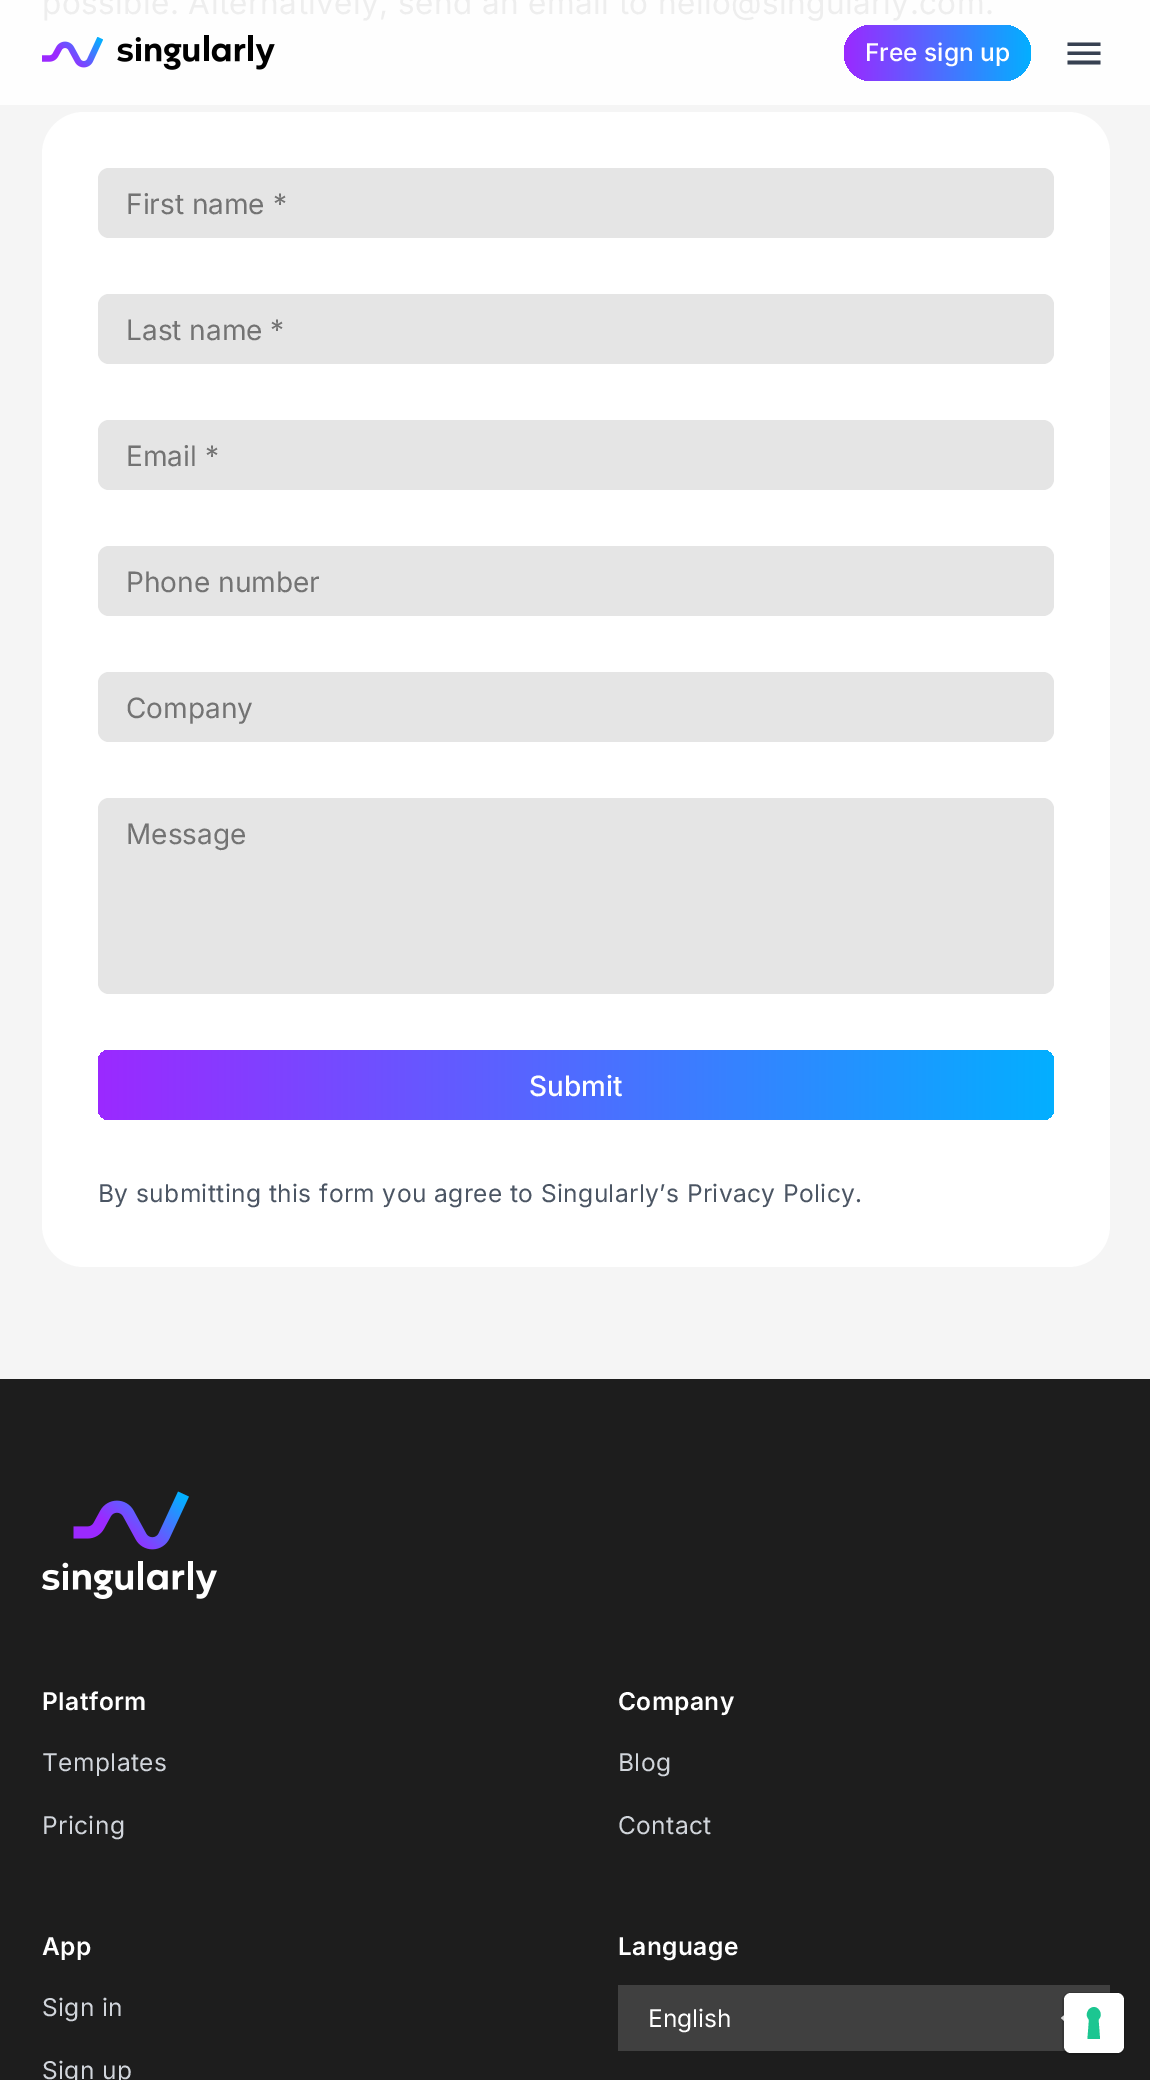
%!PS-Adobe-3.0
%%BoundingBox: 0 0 1150 2080
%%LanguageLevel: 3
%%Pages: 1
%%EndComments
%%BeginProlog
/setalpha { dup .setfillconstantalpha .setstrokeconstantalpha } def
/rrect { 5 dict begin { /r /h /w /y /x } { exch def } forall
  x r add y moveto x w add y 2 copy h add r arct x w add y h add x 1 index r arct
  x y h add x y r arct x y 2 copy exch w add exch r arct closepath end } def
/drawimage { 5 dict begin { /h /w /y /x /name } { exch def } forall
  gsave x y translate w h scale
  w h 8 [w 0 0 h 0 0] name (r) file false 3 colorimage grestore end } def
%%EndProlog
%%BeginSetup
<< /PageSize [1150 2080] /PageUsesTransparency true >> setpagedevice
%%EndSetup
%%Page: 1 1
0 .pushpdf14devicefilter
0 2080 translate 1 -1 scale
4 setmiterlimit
0.961 setgray
0 0 1150 2080 rectfill
0.996 setgray
0 0 1150 105 rectfill
1 setgray
42 112 1068 1155 42 rrect fill
0.898 setgray
98 168 956 70 11 rrect fill
98 294 956 70 11 rrect fill
98 420 956 70 11 rrect fill
98 546 956 70 11 rrect fill
98 672 956 70 11 rrect fill
98 798 956 196 11 rrect fill
gsave 98 1050 956 70 11 rrect clip newpath
<< /ShadingType 2 /ColorSpace /DeviceRGB /Coords [98 1085 1054 1085] /Extend [true true] /Function << /FunctionType 2 /Domain [0 1] /C0 [0.608 0.161 1] /C1 [0.012 0.686 1] /N 1 >> >> shfill grestore
(images/1.raw) 42 37 61 31 drawimage
(images/2.raw) 117 35 158 35 drawimage
gsave 844 25 187 56 28 rrect clip newpath
<< /ShadingType 2 /ColorSpace /DeviceRGB /Coords [844 53 1031 52] /Extend [true true] /Function << /FunctionType 2 /Domain [0 1] /C0 [0.608 0.161 1] /C1 [0.012 0.686 1] /N 1 >> >> shfill grestore
0.216 0.255 0.318 setrgbcolor
newpath 1067.5 64.5 moveto 1100.5 64.5 lineto 1100.5 60.5 lineto 1067.5 60.5 lineto closepath 1067.5 55 moveto 1100.5 55 lineto 1100.5 51.5 lineto 1067.5 51.5 lineto closepath 1067.5 42.5 moveto 1067.5 46 lineto 1100.5 46 lineto 1100.5 42.5 lineto closepath fill
0.114 setgray
0 1379 1150 701 rectfill
(images/3.raw) 42 1491 175 108 drawimage
0.251 setgray
618 1985 492 66 rectfill
1 setgray
newpath 1078 2015.5 moveto 1070.5 2022.5 lineto 1063.5 2015.5 lineto 1061 2018 lineto 1070.5 2027 lineto 1080 2018 lineto closepath fill
0.15 setalpha
0 setgray
2 setlinewidth
1063 1993 61 61 8 rrect stroke
1 setalpha
1 setgray
1064 1993 60 60 7 rrect fill
0.11 0.776 0.569 setrgbcolor
newpath 1094 2007 moveto 1100 2007.5 1103 2015.5 1098.5 2019.5 curveto 1100 2039 lineto 1087.5 2039 lineto 1089 2019.5 lineto 1084.5 2015.5 1087.5 2007.5 1094 2007 curveto closepath eofill
/Inter-Regular [31.5 0 0 -31.5 0 0] selectfont
0.933 setgray
42 14 moveto 0.42 0 (possible. Alternatively, send an email to hello@singularly.com.) ashow
/Inter-Regular [28 0 0 -28 0 0] selectfont
0.451 setgray
126 214 moveto (First name *) show
126 340 moveto (Last name *) show
126 466 moveto (Email *) show
126 592 moveto (Phone number) show
126 718 moveto (Company) show
126 844 moveto (Message) show
/Inter-Medium [28 0 0 -28 0 0] selectfont
1 setgray
529 1096 moveto (Submit) show
/Inter-Regular [24.5 0 0 -24.5 0 0] selectfont
0.294 0.333 0.388 setrgbcolor
98 1202 moveto 0.42 0 (By submitting this form you agree to Singularly’s Privacy Policy.) ashow
/Inter-Medium [24.5 0 0 -24.5 0 0] selectfont
1 setgray
865 61 moveto (Free sign up) show
/Inter-SemiBold [24.5 0 0 -24.5 0 0] selectfont
42 1710 moveto 0.42 0 (Platform) ashow
/Inter-Regular [24.5 0 0 -24.5 0 0] selectfont
0.82 0.835 0.859 setrgbcolor
42 1771 moveto 0.42 0 (Templates) ashow
42 1834 moveto 0.42 0 (Pricing) ashow
/Inter-SemiBold [24.5 0 0 -24.5 0 0] selectfont
1 setgray
618 1710 moveto 0.42 0 (Company) ashow
/Inter-Regular [24.5 0 0 -24.5 0 0] selectfont
0.82 0.835 0.859 setrgbcolor
618 1771 moveto 0.42 0 (Blog) ashow
618 1834 moveto 0.42 0 (Contact) ashow
/Inter-SemiBold [24.5 0 0 -24.5 0 0] selectfont
1 setgray
42 1955 moveto 0.42 0 (App) ashow
/Inter-Regular [24.5 0 0 -24.5 0 0] selectfont
0.82 0.835 0.859 setrgbcolor
42 2016 moveto 0.42 0 (Sign in) ashow
42 2079 moveto 0.42 0 (Sign up) ashow
/Inter-SemiBold [24.5 0 0 -24.5 0 0] selectfont
1 setgray
618 1955 moveto 0.42 0 (Language) ashow
/Inter-Regular [24.5 0 0 -24.5 0 0] selectfont
648 2027 moveto (English) show
.poppdf14devicefilter showpage
%%EOF
